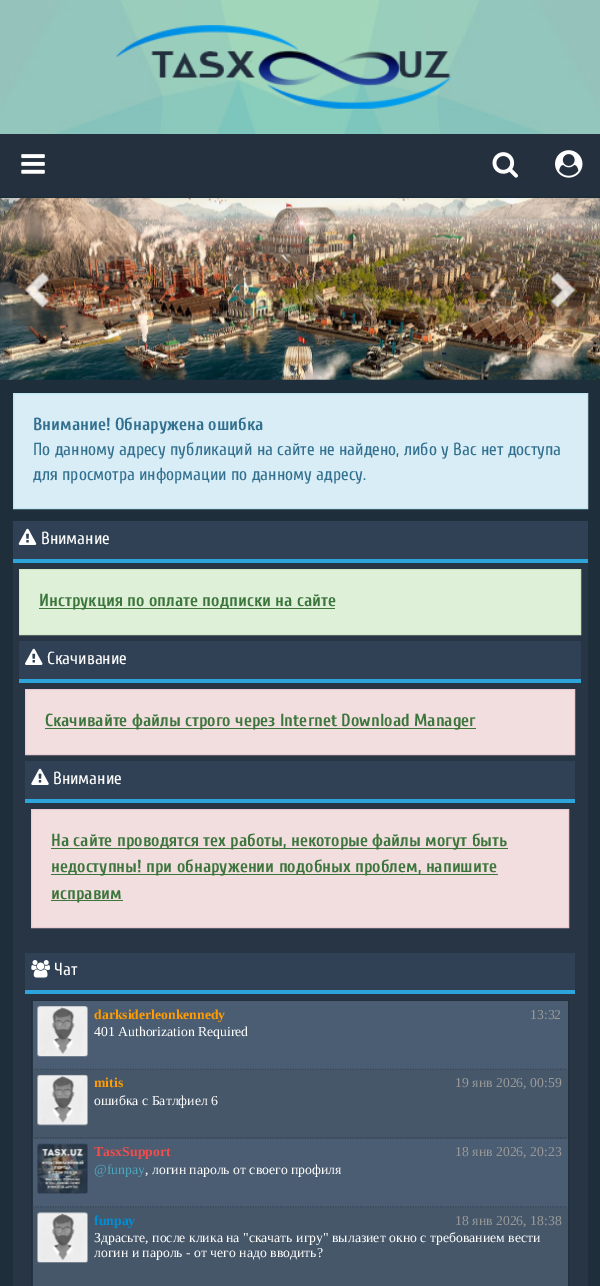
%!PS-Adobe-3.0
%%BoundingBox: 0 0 600 1286
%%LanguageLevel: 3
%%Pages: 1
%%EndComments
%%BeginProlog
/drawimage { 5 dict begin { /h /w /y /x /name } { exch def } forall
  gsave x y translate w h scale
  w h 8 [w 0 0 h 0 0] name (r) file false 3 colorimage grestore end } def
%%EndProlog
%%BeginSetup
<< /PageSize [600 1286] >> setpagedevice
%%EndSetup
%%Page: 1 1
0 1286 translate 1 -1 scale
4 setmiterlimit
1 setgray
0 0 600 1286 rectfill
(images/1.raw) 0 0 600 134 drawimage
(images/2.raw) 116 25 335 84 drawimage
0.122 0.18 0.231 setrgbcolor
0 196 600 1090 rectfill
0.141 0.188 0.243 setrgbcolor
0 134 600 62 rectfill
(images/3.raw) 21 154 24 20 drawimage
(images/4.raw) 492 152 26 26 drawimage
(images/5.raw) 555 150 28 28 drawimage
(images/6.raw) 0 198 600 182 drawimage
(images/7.raw) 12 251 51 75 drawimage
(images/8.raw) 537 251 51 76 drawimage
0.851 0.929 0.969 setrgbcolor
newpath 13.5 393.5 moveto 587.5 393.5 lineto 587.5 508.5 lineto 13.5 508.5 lineto closepath gsave fill grestore
0.737 0.91 0.945 setrgbcolor
stroke
0.188 0.255 0.333 setrgbcolor
13 521 575 38 rectfill
0.176 0.647 0.855 setrgbcolor
13 559 575 4 rectfill
(images/9.raw) 18 528 19 17 drawimage
0.153 0.208 0.271 setrgbcolor
13 563 575 723 rectfill
0.875 0.941 0.847 setrgbcolor
newpath 19.5 569.5 moveto 580.5 569.5 lineto 580.5 634.5 lineto 19.5 634.5 lineto closepath gsave fill grestore
0.839 0.914 0.776 setrgbcolor
stroke
0.235 0.463 0.239 setrgbcolor
39 608 296 1 rectfill
0.188 0.255 0.333 setrgbcolor
19 641 562 38 rectfill
0.176 0.647 0.855 setrgbcolor
19 679 562 4 rectfill
(images/10.raw) 25 648 18 17 drawimage
0.949 0.871 0.871 setrgbcolor
newpath 25.5 689.5 moveto 574.5 689.5 lineto 574.5 754.5 lineto 25.5 754.5 lineto closepath gsave fill grestore
0.922 0.8 0.82 setrgbcolor
stroke
0.235 0.463 0.239 setrgbcolor
45 728 431 1 rectfill
0.188 0.255 0.333 setrgbcolor
25 761 550 38 rectfill
0.176 0.647 0.855 setrgbcolor
25 799 550 4 rectfill
(images/11.raw) 31 768 18 17 drawimage
0.949 0.871 0.871 setrgbcolor
newpath 31.5 809.5 moveto 568.5 809.5 lineto 568.5 927.5 lineto 31.5 927.5 lineto closepath gsave fill grestore
0.922 0.8 0.82 setrgbcolor
stroke
0.235 0.463 0.239 setrgbcolor
51 848 457 1 rectfill
51 874 447 1 rectfill
51 900 72 1 rectfill
0.188 0.255 0.333 setrgbcolor
25 953 550 37 rectfill
0.176 0.647 0.855 setrgbcolor
25 990 550 4 rectfill
(images/12.raw) 31 960 19 18 drawimage
0.137 0.188 0.243 setrgbcolor
31.5 1000.5 537 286 rectstroke
0.294 0.365 0.447 setrgbcolor
33 1001 535 207 rectfill
0.212 0.267 0.333 setrgbcolor
1.2 setlinewidth
[1.25 1.25] 0 setdash
newpath 32.5 1069.5 moveto 567.5 1069.5 lineto stroke
(images/13.raw) 37 1006 51 51 drawimage
0.275 0.341 0.416 setrgbcolor
33 1070 535 69 rectfill
0.212 0.267 0.333 setrgbcolor
newpath 32.5 1138 moveto 567.5 1138 lineto stroke
(images/14.raw) 37 1074 51 52 drawimage
newpath 32.5 1207 moveto 567.5 1207 lineto stroke
(images/15.raw) 37 1143 51 51 drawimage
0.275 0.341 0.416 setrgbcolor
33 1208 535 78 rectfill
(images/16.raw) 37 1212 51 51 drawimage
/Cuprum-Bold [17.5 0 0 -17.5 0 0] selectfont
0.192 0.439 0.561 setrgbcolor
33 430 moveto (Внимание! Обнаружена ошибка) show
/Cuprum-Regular [17.5 0 0 -17.5 0 0] selectfont
33 455 moveto (По данному адресу публикаций на сайте не найдено, либо у Вас нет доступа) show
33 480 moveto (для просмотра информации по данному адресу.) show
1 setgray
41 544 moveto (Внимание) show
/Cuprum-Bold [17.5 0 0 -17.5 0 0] selectfont
0.235 0.463 0.239 setrgbcolor
39 606 moveto (Инструкция по оплате подписки на сайте) show
/Cuprum-Regular [17.5 0 0 -17.5 0 0] selectfont
1 setgray
47 664 moveto (Скачивание) show
/Cuprum-Bold [17.5 0 0 -17.5 0 0] selectfont
0.235 0.463 0.239 setrgbcolor
45 726 moveto (Скачивайте файлы строго через Internet Download Manager) show
/Cuprum-Regular [17.5 0 0 -17.5 0 0] selectfont
1 setgray
53 784 moveto (Внимание) show
/Cuprum-Bold [17.5 0 0 -17.5 0 0] selectfont
0.235 0.463 0.239 setrgbcolor
51 846 moveto (На сайте проводятся тех работы, некоторые файлы могут быть) show
51 872 moveto (недоступны! при обнаружении подобных проблем, напишите) show
51 899 moveto (исправим) show
/Cuprum-Regular [17.5 0 0 -17.5 0 0] selectfont
1 setgray
54 975 moveto (Чат) show
/LiberationSerif-Bold [13.75 0 0 -13.75 0 0] selectfont
1 0.612 0 setrgbcolor
94 1019 moveto (darksiderleonkennedy) show
/LiberationSerif-Regular [13.75 0 0 -13.75 0 0] selectfont
0.6 setgray
530 1019 moveto (13:32) show
1 setgray
94 1036 moveto (401 Authorization Required) show
/LiberationSerif-Bold [13.75 0 0 -13.75 0 0] selectfont
1 0.612 0 setrgbcolor
94 1087 moveto (mitis) show
/LiberationSerif-Regular [13.75 0 0 -13.75 0 0] selectfont
0.6 setgray
455 1087 moveto (19 янв 2026, 00:59) show
1 setgray
94 1105 moveto (ошибка с Батлфиел 6) show
/LiberationSerif-Bold [13.75 0 0 -13.75 0 0] selectfont
0.945 0.302 0.302 setrgbcolor
94 1156 moveto (TasxSupport) show
/LiberationSerif-Regular [13.75 0 0 -13.75 0 0] selectfont
0.6 setgray
455 1156 moveto (18 янв 2026, 20:23) show
0.306 0.647 0.749 setrgbcolor
94 1174 moveto (@funpay) show
1 setgray
145 1174 moveto (, логин пароль от своего профиля) show
/LiberationSerif-Bold [13.75 0 0 -13.75 0 0] selectfont
0 0.561 0.835 setrgbcolor
94 1225 moveto (funpay) show
/LiberationSerif-Regular [13.75 0 0 -13.75 0 0] selectfont
0.6 setgray
455 1225 moveto (18 янв 2026, 18:38) show
1 setgray
94 1242 moveto (Здрасьте, после клика на "скачать игру" вылазиет окно с требованием вести) show
94 1257 moveto (логин и пароль - от чего надо вводить?) show
showpage
%%EOF
